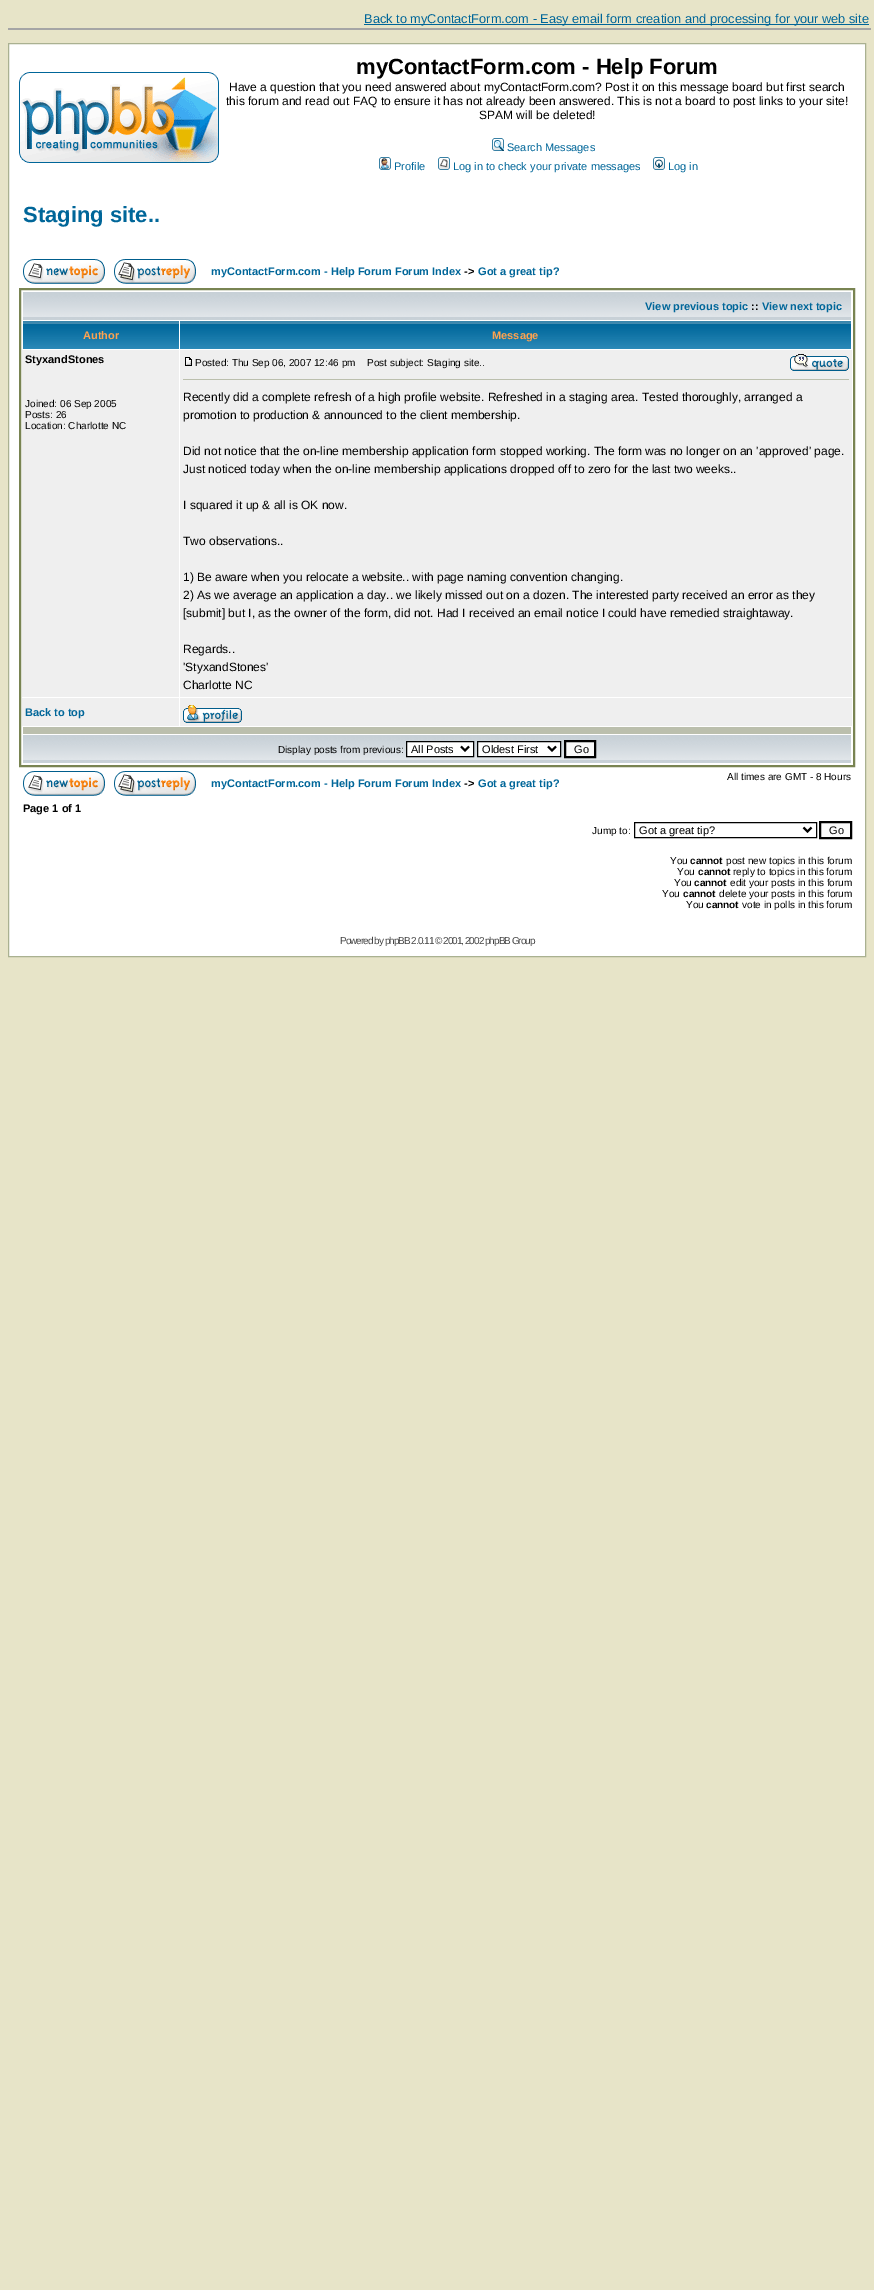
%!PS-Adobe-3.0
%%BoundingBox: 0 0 874 2290
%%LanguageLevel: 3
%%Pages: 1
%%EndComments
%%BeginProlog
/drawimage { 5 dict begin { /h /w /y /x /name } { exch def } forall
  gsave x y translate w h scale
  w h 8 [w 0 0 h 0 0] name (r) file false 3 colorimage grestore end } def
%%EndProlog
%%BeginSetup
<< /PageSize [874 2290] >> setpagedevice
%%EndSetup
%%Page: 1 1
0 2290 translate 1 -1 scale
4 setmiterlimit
0.906 0.894 0.784 setrgbcolor
0 0 874 2290 rectfill
0.647 setgray
8 28 863 2 rectfill
0 0.4 0.6 setrgbcolor
364 24 505 1 rectfill
1 setgray
newpath 8.5 43.5 moveto 865.5 43.5 lineto 865.5 956.5 lineto 8.5 956.5 lineto closepath gsave fill grestore
0.667 0.694 0.569 setrgbcolor
stroke
(images/1.raw) 19 72 200 91 drawimage
(images/2.raw) 492 138 12 13 drawimage
(images/3.raw) 379 157 12 13 drawimage
(images/4.raw) 438 157 12 13 drawimage
(images/5.raw) 653 157 12 13 drawimage
(images/6.raw) 23 259 82 25 drawimage
(images/7.raw) 114 259 82 25 drawimage
0.475 0.518 0.322 setrgbcolor
2 setlinewidth
20 289 834 477 rectstroke
(images/8.raw) 23 292 828 28 drawimage
(images/9.raw) 23 321 156 28 drawimage
(images/10.raw) 180 321 671 28 drawimage
0.937 setgray
22 350 157 347 rectfill
180 350 672 347 rectfill
(images/11.raw) 185 357 7 9 drawimage
(images/12.raw) 790 354 59 17 drawimage
0.733 0.749 0.678 setrgbcolor
183 379 666 1 rectfill
0.937 setgray
22 698 157 28 rectfill
180 698 672 28 rectfill
(images/13.raw) 183 705 59 18 drawimage
0.733 0.749 0.678 setrgbcolor
23 727 828 7 rectfill
(images/8.raw) 23 735 828 28 drawimage
1 setgray
newpath 406.5 741.5 moveto 473.5 741.5 lineto 473.5 756.5 lineto 406.5 756.5 lineto closepath gsave fill grestore
0 setgray
1 setlinewidth
stroke
2 setlinewidth
newpath 461 746.5 moveto 465 750.5 lineto 469 746.5 lineto stroke
1 setgray
newpath 477.5 741.5 moveto 560.5 741.5 lineto 560.5 756.5 lineto 477.5 756.5 lineto closepath gsave fill grestore
0 setgray
1 setlinewidth
stroke
2 setlinewidth
newpath 548 746.5 moveto 552 750.5 lineto 556 746.5 lineto stroke
0.98 setgray
newpath 565 741 moveto 595 741 lineto 595 757 lineto 565 757 lineto closepath gsave fill grestore
0 setgray
stroke
(images/6.raw) 23 771 82 25 drawimage
(images/7.raw) 114 771 82 25 drawimage
1 setlinewidth
634.5 822.5 182 15 rectstroke
2 setlinewidth
newpath 803.5 827.5 moveto 807.5 831.5 lineto 811.5 827.5 lineto stroke
0.98 setgray
newpath 820 822 moveto 851 822 lineto 851 838 lineto 820 838 lineto closepath gsave fill grestore
0 setgray
stroke
/LiberationSans-Regular [12.8 0 0 -12.8 0 0] selectfont
0 0.4 0.6 setrgbcolor
364 23 moveto (Back to myContactForm.com - Easy email form creation and processing for your web site) show
/LiberationSans-Bold [22 0 0 -22 0 0] selectfont
0 setgray
356 74 moveto (myContactForm.com - Help Forum) show
/LiberationSans-Regular [12 0 0 -12 0 0] selectfont
229 91 moveto (Have a question that you need answered about myContactForm.com? Post it on this message board but first search) show
226 105 moveto (this forum and read out FAQ to ensure it has not already been answered. This is not a board to post links to your site!) show
479 119 moveto (SPAM will be deleted!) show
/LiberationSans-Regular [11 0 0 -11 0 0] selectfont
0 0.4 0.6 setrgbcolor
507 151 moveto (Search Messages) show
394 170 moveto (Profile) show
453 170 moveto (Log in to check your private messages) show
668 170 moveto (Log in) show
/LiberationSans-Bold [22 0 0 -22 0 0] selectfont
23 222 moveto (Staging site..) show
/LiberationSans-Bold [11 0 0 -11 0 0] selectfont
211 275 moveto (myContactForm.com - Help Forum Forum Index) show
0 setgray
464 275 moveto (->) show
0 0.4 0.6 setrgbcolor
478 275 moveto (Got a great tip?) show
645 310 moveto (View previous topic) show
0 setgray
751 310 moveto (::) show
0 0.4 0.6 setrgbcolor
762 310 moveto (View next topic) show
1 0.639 0.31 setrgbcolor
83 339 moveto (Author) show
492 339 moveto (Message) show
0 setgray
25 363 moveto (StyxandStones) show
/LiberationSans-Regular [10 0 0 -10 0 0] selectfont
25 407 moveto (Joined: 06 Sep 2005) show
25 418 moveto (Posts: 26) show
25 429 moveto (Location: Charlotte NC) show
195 366 moveto (Posted: Thu Sep 06, 2007 12:46 pm) show
367 366 moveto (Post subject: Staging site..) show
/LiberationSans-Regular [12 0 0 -12 0 0] selectfont
183 401 moveto (Recently did a complete refresh of a high profile website. Refreshed in a staging area. Tested thoroughly, arranged a) show
183 419 moveto (promotion to production & announced to the client membership.) show
183 455 moveto (Did not notice that the on-line membership application form stopped working. The form was no longer on an 'approved' page.) show
183 473 moveto (Just noticed today when the on-line membership applications dropped off to zero for the last two weeks..) show
183 509 moveto (I squared it up & all is OK now.) show
183 545 moveto (Two observations..) show
183 581 moveto (1\) Be aware when you relocate a website.. with page naming convention changing.) show
183 599 moveto (2\) As we average an application a day.. we likely missed out on a dozen. The interested party received an error as they) show
183 617 moveto ([submit] but I, as the owner of the form, did not. Had I received an email notice I could have remedied straightaway.) show
183 653 moveto (Regards..) show
183 671 moveto ('StyxandStones') show
183 689 moveto (Charlotte NC) show
/LiberationSans-Bold [11 0 0 -11 0 0] selectfont
0 0.4 0.6 setrgbcolor
25 716 moveto (Back to top) show
/LiberationSans-Regular [10 0 0 -10 0 0] selectfont
0 setgray
278 753 moveto (Display posts from previous:) show
/LiberationSans-Regular [11 0 0 -11 0 0] selectfont
411 753 moveto (All Posts) show
482 753 moveto (Oldest First) show
574 753 moveto (Go) show
/LiberationSans-Regular [10 0 0 -10 0 0] selectfont
727 780 moveto (All times are GMT - 8 Hours) show
/LiberationSans-Bold [11 0 0 -11 0 0] selectfont
0 0.4 0.6 setrgbcolor
211 787 moveto (myContactForm.com - Help Forum Forum Index) show
0 setgray
464 787 moveto (->) show
0 0.4 0.6 setrgbcolor
478 787 moveto (Got a great tip?) show
0 setgray
23 812 moveto (Page 1 of 1) show
/LiberationSans-Regular [10 0 0 -10 0 0] selectfont
592 834 moveto (Jump to:) show
/LiberationSans-Regular [11 0 0 -11 0 0] selectfont
639 834 moveto (Got a great tip?) show
829 834 moveto (Go) show
/LiberationSans-Regular [10 0 0 -10 0 0] selectfont
670 864 moveto (You) show
/LiberationSans-Bold [10 0 0 -10 0 0] selectfont
690 864 moveto (cannot) show
/LiberationSans-Regular [10 0 0 -10 0 0] selectfont
726 864 moveto (post new topics in this forum) show
677 875 moveto (You) show
/LiberationSans-Bold [10 0 0 -10 0 0] selectfont
698 875 moveto (cannot) show
/LiberationSans-Regular [10 0 0 -10 0 0] selectfont
733 875 moveto (reply to topics in this forum) show
674 886 moveto (You) show
/LiberationSans-Bold [10 0 0 -10 0 0] selectfont
694 886 moveto (cannot) show
/LiberationSans-Regular [10 0 0 -10 0 0] selectfont
730 886 moveto (edit your posts in this forum) show
662 897 moveto (You) show
/LiberationSans-Bold [10 0 0 -10 0 0] selectfont
683 897 moveto (cannot) show
/LiberationSans-Regular [10 0 0 -10 0 0] selectfont
719 897 moveto (delete your posts in this forum) show
686 908 moveto (You) show
/LiberationSans-Bold [10 0 0 -10 0 0] selectfont
706 908 moveto (cannot) show
/LiberationSans-Regular [10 0 0 -10 0 0] selectfont
742 908 moveto (vote in polls in this forum) show
0.267 setgray
340 944 moveto -1 0 (Powered by phpBB 2.0.11 © 2001, 2002 phpBB Group) ashow
showpage
%%EOF
